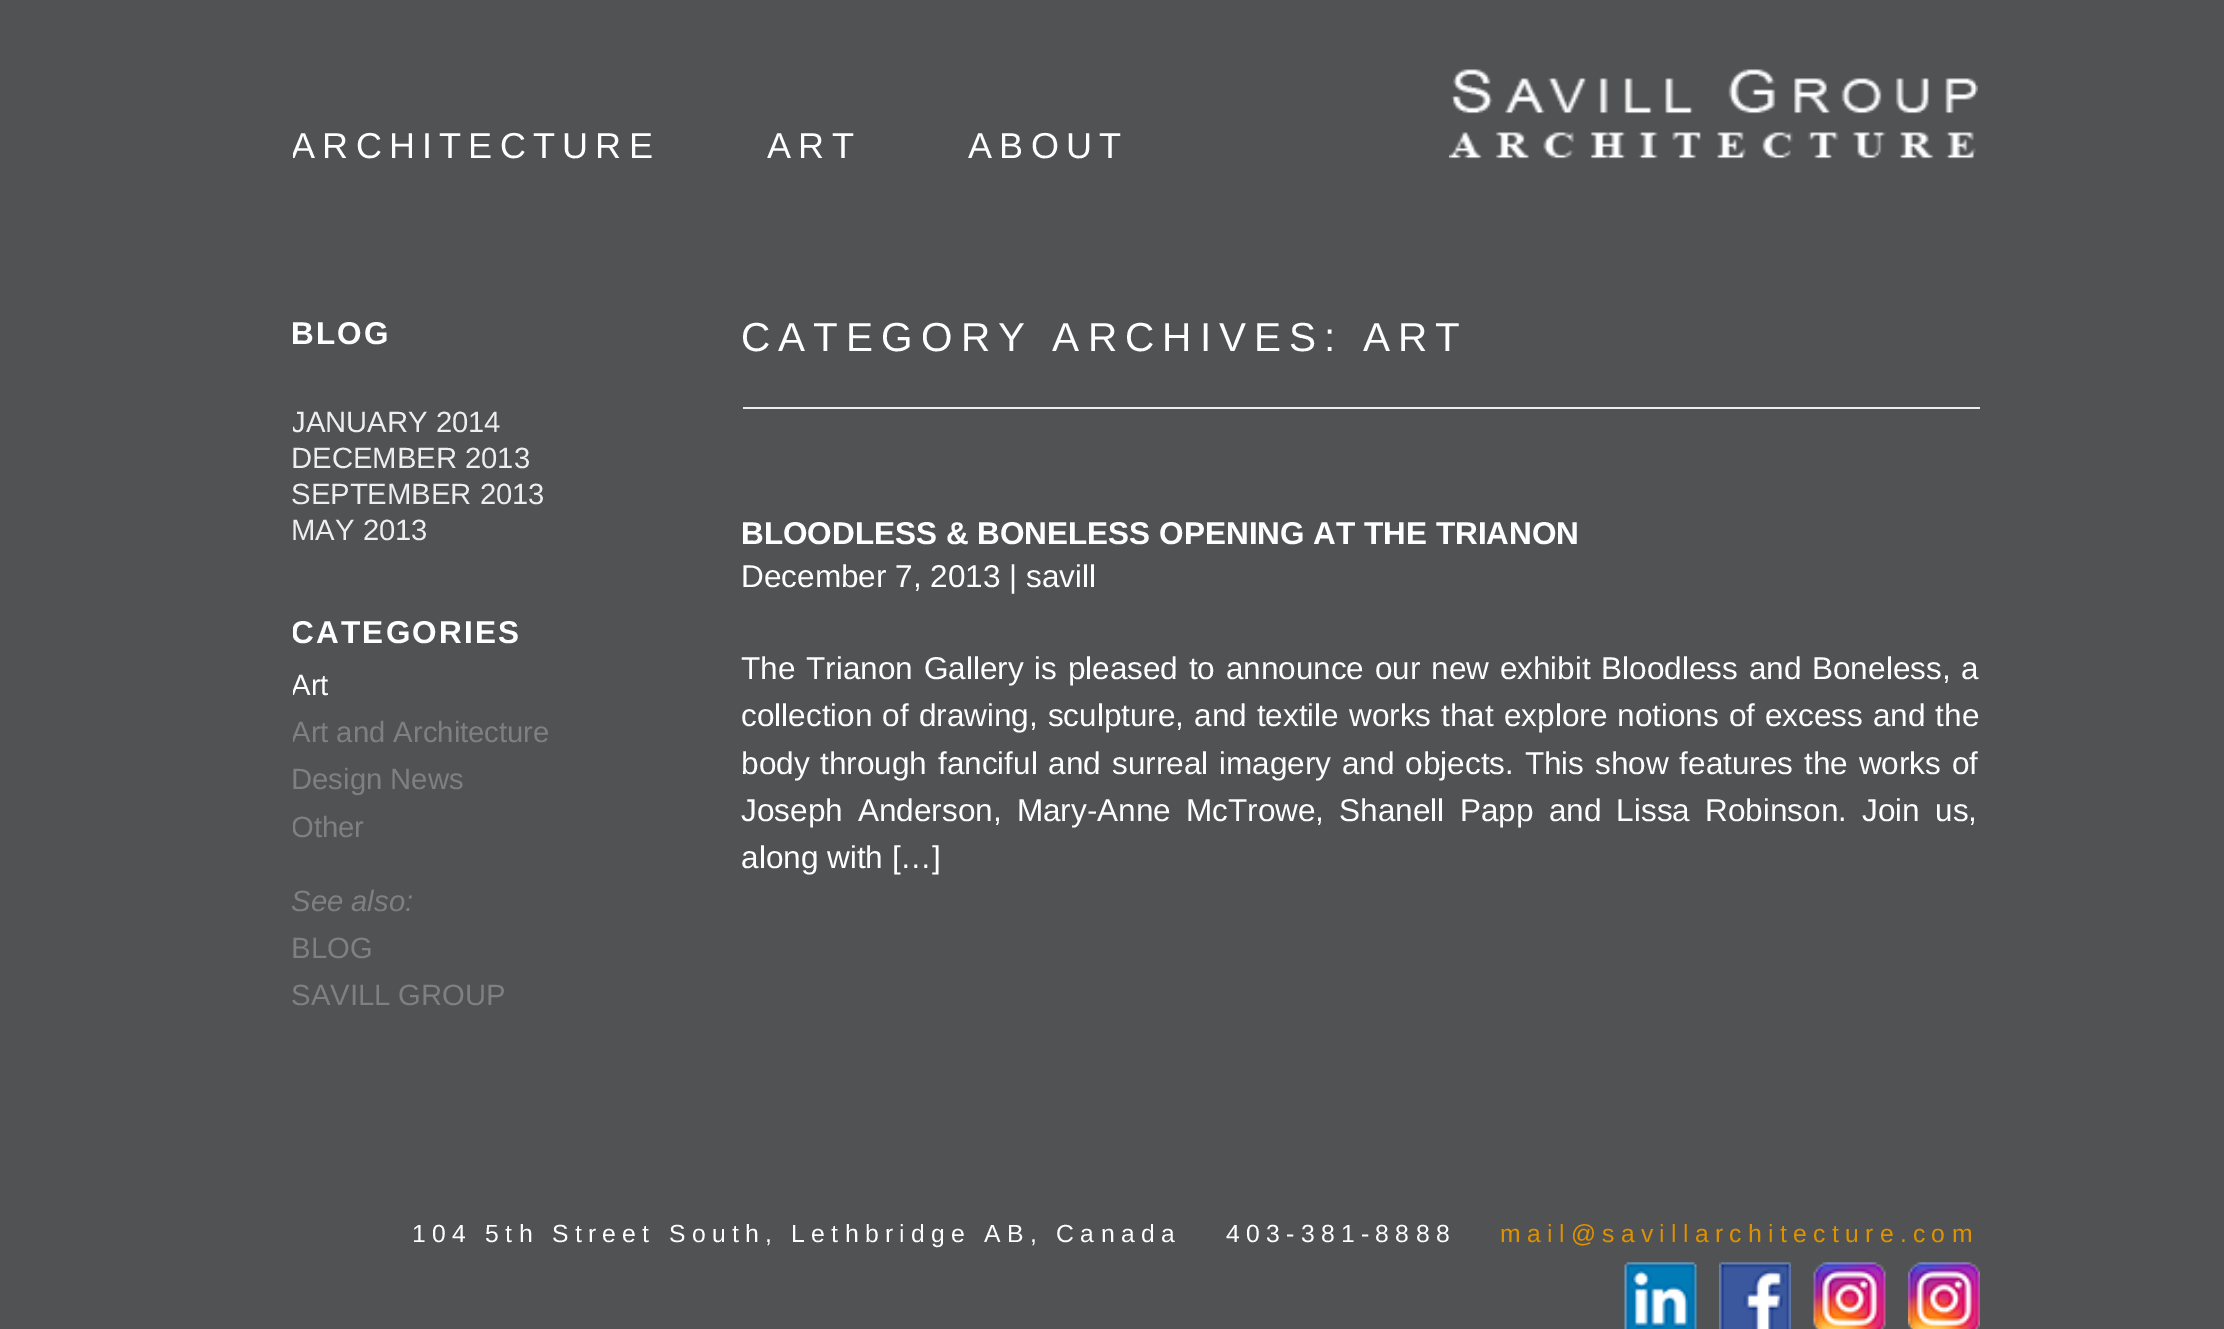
%!PS-Adobe-3.0
%%BoundingBox: 0 0 2224 1329
%%LanguageLevel: 3
%%Pages: 1
%%EndComments
%%BeginProlog
/drawimage { 5 dict begin { /h /w /y /x /name } { exch def } forall
  gsave x y translate w h scale
  w h 8 [w 0 0 h 0 0] name (r) file false 3 colorimage grestore end } def
%%EndProlog
%%BeginSetup
<< /PageSize [2224 1329] >> setpagedevice
%%EndSetup
%%Page: 1 1
0 1329 translate 1 -1 scale
4 setmiterlimit
0.318 0.322 0.329 setrgbcolor
0 0 2224 1329 rectfill
(images/1.raw) 1449 69 529 90 drawimage
0.929 setgray
743 407 1237 2 rectfill
(images/2.raw) 1624 1262 73 67 drawimage
(images/3.raw) 1719 1262 72 67 drawimage
(images/4.raw) 1813 1262 73 67 drawimage
(images/5.raw) 1908 1262 72 67 drawimage
gsave
293 0 1687 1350 rectclip
/LiberationSans-Regular [36 0 0 -36 0 0] selectfont
1 setgray
291 158 moveto 7.25 0 (ARCHITECTURE) ashow
grestore
/LiberationSans-Regular [36 0 0 -36 0 0] selectfont
1 setgray
767 158 moveto 7.25 0 (ART) ashow
968 158 moveto 7.25 0 (ABOUT) ashow
/LiberationSans-Bold [31.5 0 0 -31.5 0 0] selectfont
291 344 moveto 2.25 0 (BLOG) ashow
gsave
293 0 1687 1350 rectclip
/LiberationSans-Regular [29.25 0 0 -29.25 0 0] selectfont
0.933 setgray
291 432 moveto (JANUARY 2014) show
grestore
/LiberationSans-Regular [29.25 0 0 -29.25 0 0] selectfont
0.933 setgray
291 468 moveto (DECEMBER 2013) show
291 504 moveto (SEPTEMBER 2013) show
291 540 moveto (MAY 2013) show
gsave
293 0 1687 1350 rectclip
/LiberationSans-Bold [31.5 0 0 -31.5 0 0] selectfont
1 setgray
291 643 moveto 2.25 0 (CATEGORIES) ashow
/LiberationSans-Regular [29.25 0 0 -29.25 0 0] selectfont
291 695 moveto (Art) show
0.502 setgray
291 742 moveto (Art and Architecture) show
grestore
0.502 setgray
291 789 moveto (Design News) show
gsave
293 0 1687 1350 rectclip
291 837 moveto (Other) show
grestore
/LiberationSans-Italic [29.25 0 0 -29.25 0 0] selectfont
291 911 moveto (See also:) show
/LiberationSans-Regular [29.25 0 0 -29.25 0 0] selectfont
291 958 moveto (BLOG) show
291 1005 moveto (SAVILL GROUP) show
/LiberationSans-Regular [40.5 0 0 -40.5 0 0] selectfont
1 setgray
741 351 moveto 8.1 0 (CATEGORY ARCHIVES: ART) ashow
/LiberationSans-Bold [31.5 0 0 -31.5 0 0] selectfont
741 544 moveto (BLOODLESS & BONELESS OPENING AT THE TRIANON) show
/LiberationSans-Regular [31.5 0 0 -31.5 0 0] selectfont
741 587 moveto (December 7, 2013 | savill) show
741 679 moveto 2 0 32 (The Trianon Gallery is pleased to announce our new exhibit Bloodless and Boneless, a) widthshow
741 726 moveto 1.25 0 32 (collection of drawing, sculpture, and textile works that explore notions of excess and the) widthshow
741 774 moveto 2.1 0 32 (body through fanciful and surreal imagery and objects. This show features the works of) widthshow
741 821 moveto 6.5 0 32 (Joseph Anderson, Mary-Anne McTrowe, Shanell Papp and Lissa Robinson. Join us,) widthshow
741 868 moveto (along with […]) show
/LiberationSans-Regular [24.75 0 0 -24.75 0 0] selectfont
412 1242 moveto 6.3 0 (104 5th Street South, Lethbridge AB, Canada) ashow
1226 1242 moveto 6.3 0 (403-381-8888) ashow
0.875 0.573 0 setrgbcolor
1500 1242 moveto 6.3 0 (mail@savillarchitecture.com) ashow
showpage
%%EOF
